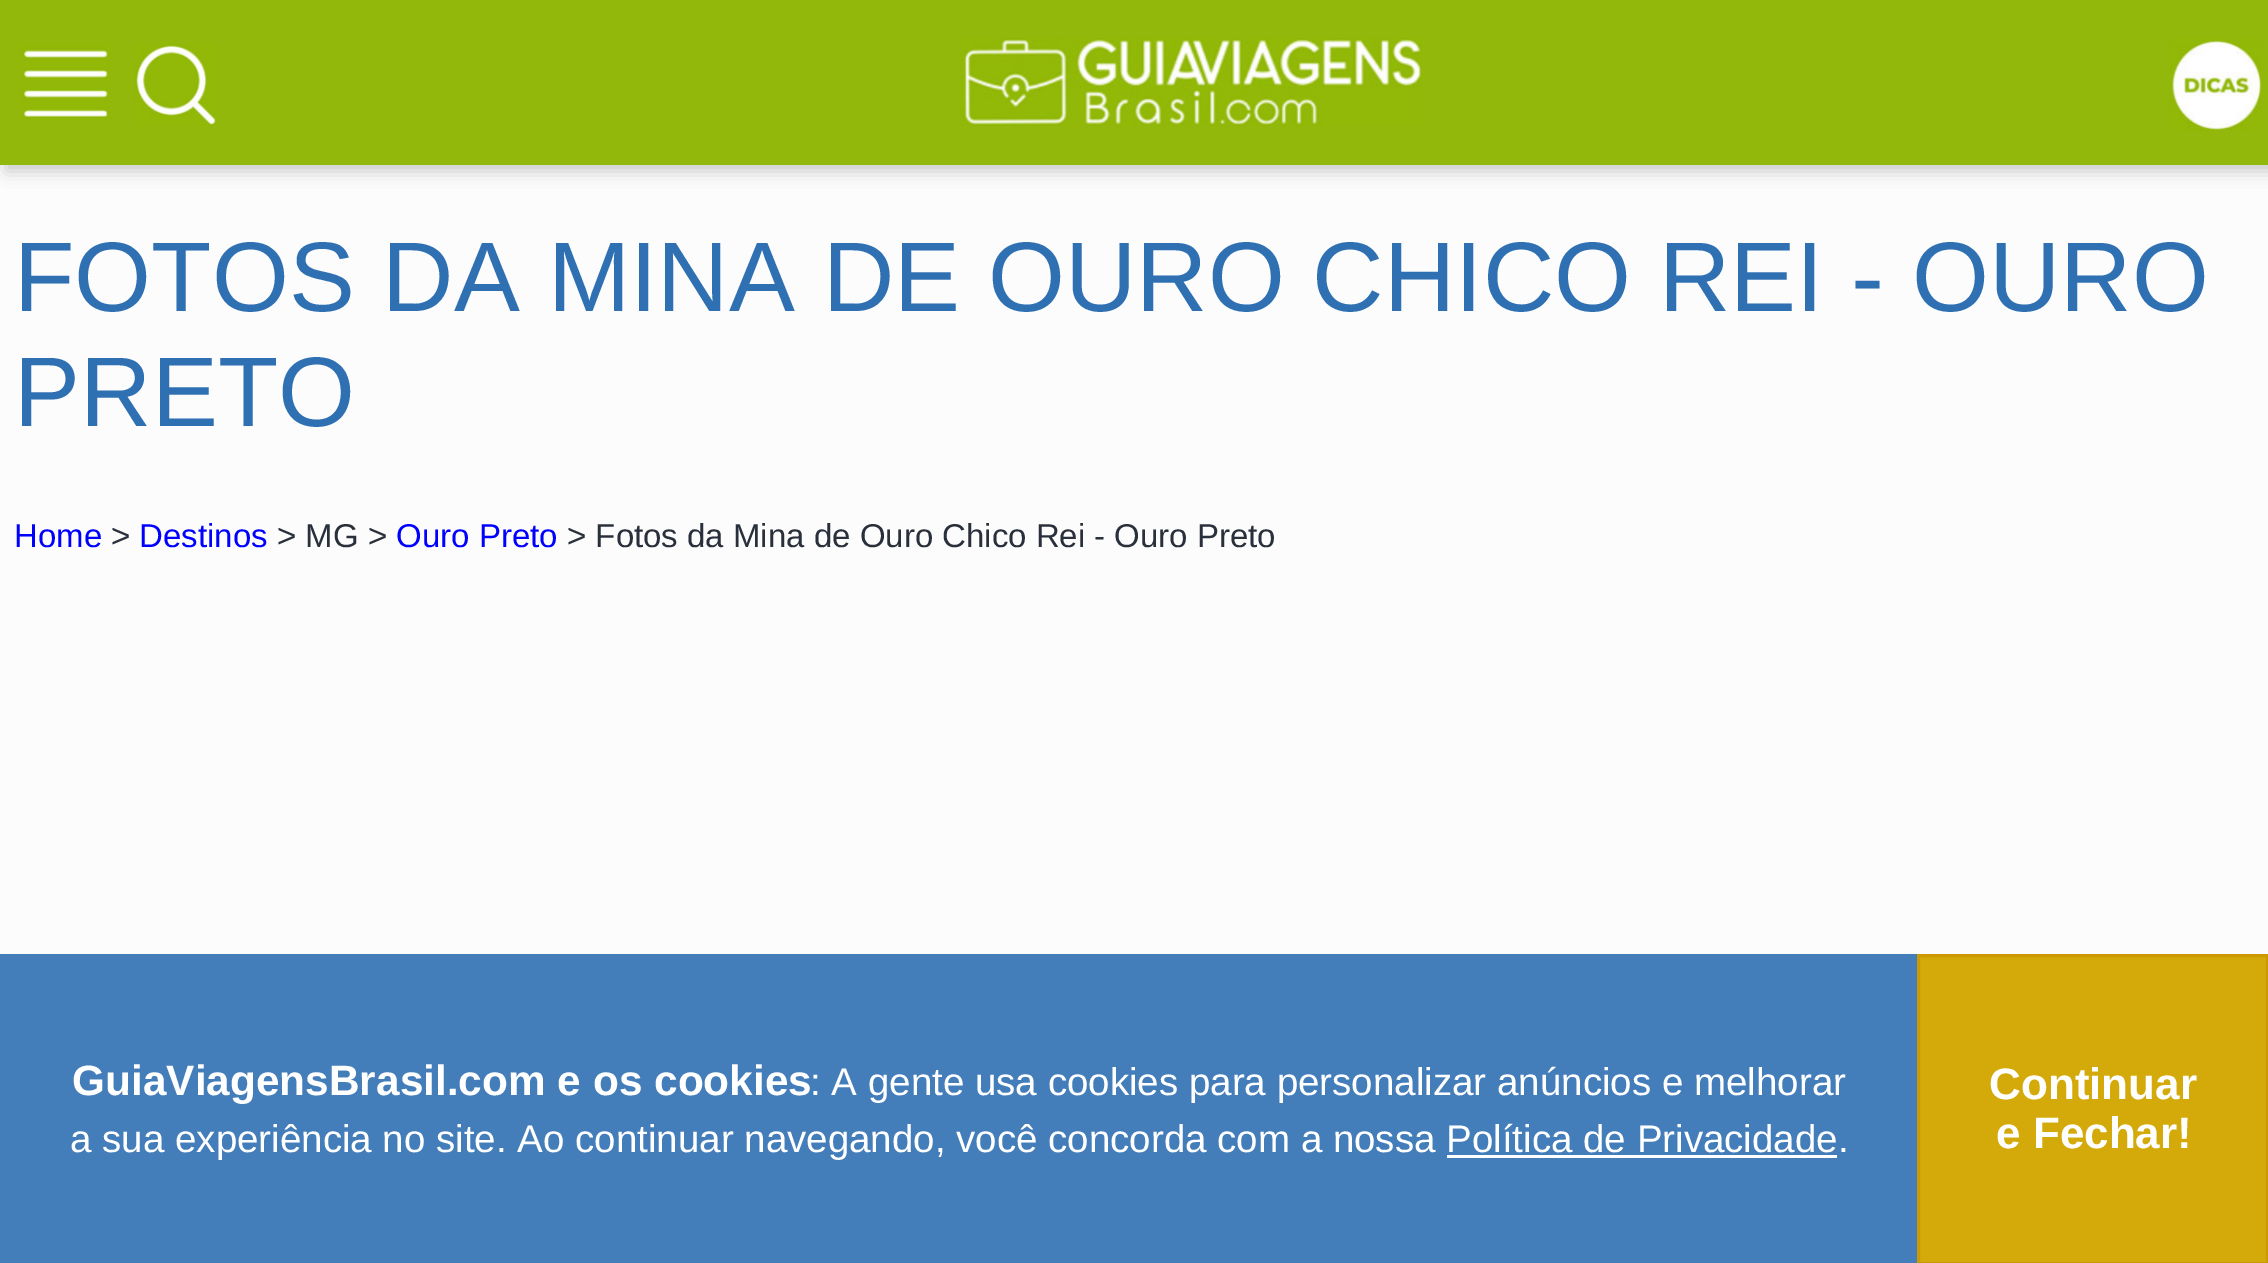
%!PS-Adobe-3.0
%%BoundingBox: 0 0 2268 1263
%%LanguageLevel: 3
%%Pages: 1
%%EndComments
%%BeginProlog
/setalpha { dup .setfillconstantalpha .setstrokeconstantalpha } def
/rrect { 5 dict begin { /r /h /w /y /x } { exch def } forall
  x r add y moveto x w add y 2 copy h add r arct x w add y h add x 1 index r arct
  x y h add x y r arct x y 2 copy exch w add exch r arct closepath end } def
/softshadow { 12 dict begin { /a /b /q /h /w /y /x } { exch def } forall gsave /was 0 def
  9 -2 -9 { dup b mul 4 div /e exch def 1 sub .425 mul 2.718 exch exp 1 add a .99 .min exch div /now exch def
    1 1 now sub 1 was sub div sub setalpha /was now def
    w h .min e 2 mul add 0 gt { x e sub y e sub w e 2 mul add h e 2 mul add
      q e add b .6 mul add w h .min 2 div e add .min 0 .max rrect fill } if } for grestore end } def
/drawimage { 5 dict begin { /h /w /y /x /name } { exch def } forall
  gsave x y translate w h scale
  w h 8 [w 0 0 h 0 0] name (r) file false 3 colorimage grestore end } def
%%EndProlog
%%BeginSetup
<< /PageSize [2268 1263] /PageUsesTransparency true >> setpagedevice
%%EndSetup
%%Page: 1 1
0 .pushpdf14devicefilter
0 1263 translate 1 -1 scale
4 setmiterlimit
0.988 setgray
0 0 2268 1263 rectfill
0 setgray
6 6 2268 165 0 8 0.2 softshadow
0.569 0.722 0.043 setrgbcolor
0 0 2268 165 rectfill
(images/1.raw) 19 43 92 77 drawimage
(images/2.raw) 134 44 83 82 drawimage
(images/3.raw) 959 38 463 88 drawimage
(images/4.raw) 2169 38 94 93 drawimage
0.267 0.494 0.729 setrgbcolor
0 954 1917 309 rectfill
1 setgray
1447 1155 390 3 rectfill
0.831 0.667 0.043 setrgbcolor
newpath 1918.5 955.5 moveto 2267.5 955.5 lineto 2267.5 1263.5 lineto 1918.5 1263.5 lineto closepath gsave fill grestore
0.8 0.6 0 setrgbcolor
3 setlinewidth
stroke
/LiberationSans-Regular [99 0 0 -99 0 0] selectfont
0.184 0.439 0.698 setrgbcolor
14 311 moveto (FOTOS DA MINA DE OURO CHICO REI - OURO) show
14 426 moveto (PRETO) show
/LiberationSans-Regular [33 0 0 -33 0 0] selectfont
0 0 1 setrgbcolor
14 547 moveto (Home) show
0.161 0.188 0.231 setrgbcolor
111 547 moveto (>) show
0 0 1 setrgbcolor
139 547 moveto (Destinos) show
0.161 0.188 0.231 setrgbcolor
277 547 moveto (> MG >) show
0 0 1 setrgbcolor
396 547 moveto (Ouro Preto) show
0.161 0.188 0.231 setrgbcolor
567 547 moveto (> Fotos da Mina de Ouro Chico Rei - Ouro Preto) show
/LiberationSans-Bold [42.4 0 0 -42.4 0 0] selectfont
1 setgray
72 1095 moveto (GuiaViagensBrasil.com e os cookies) show
/LiberationSans-Regular [38.5 0 0 -38.5 0 0] selectfont
810 1095 moveto (: A gente usa cookies para personalizar anúncios e melhorar) show
70 1152 moveto (a sua experiência no site. Ao continuar navegando, você concorda com a nossa Política de Privacidade.) show
/LiberationSans-Bold [44 0 0 -44 0 0] selectfont
1989 1099 moveto (Continuar) show
1996 1148 moveto (e Fechar!) show
.poppdf14devicefilter showpage
%%EOF
